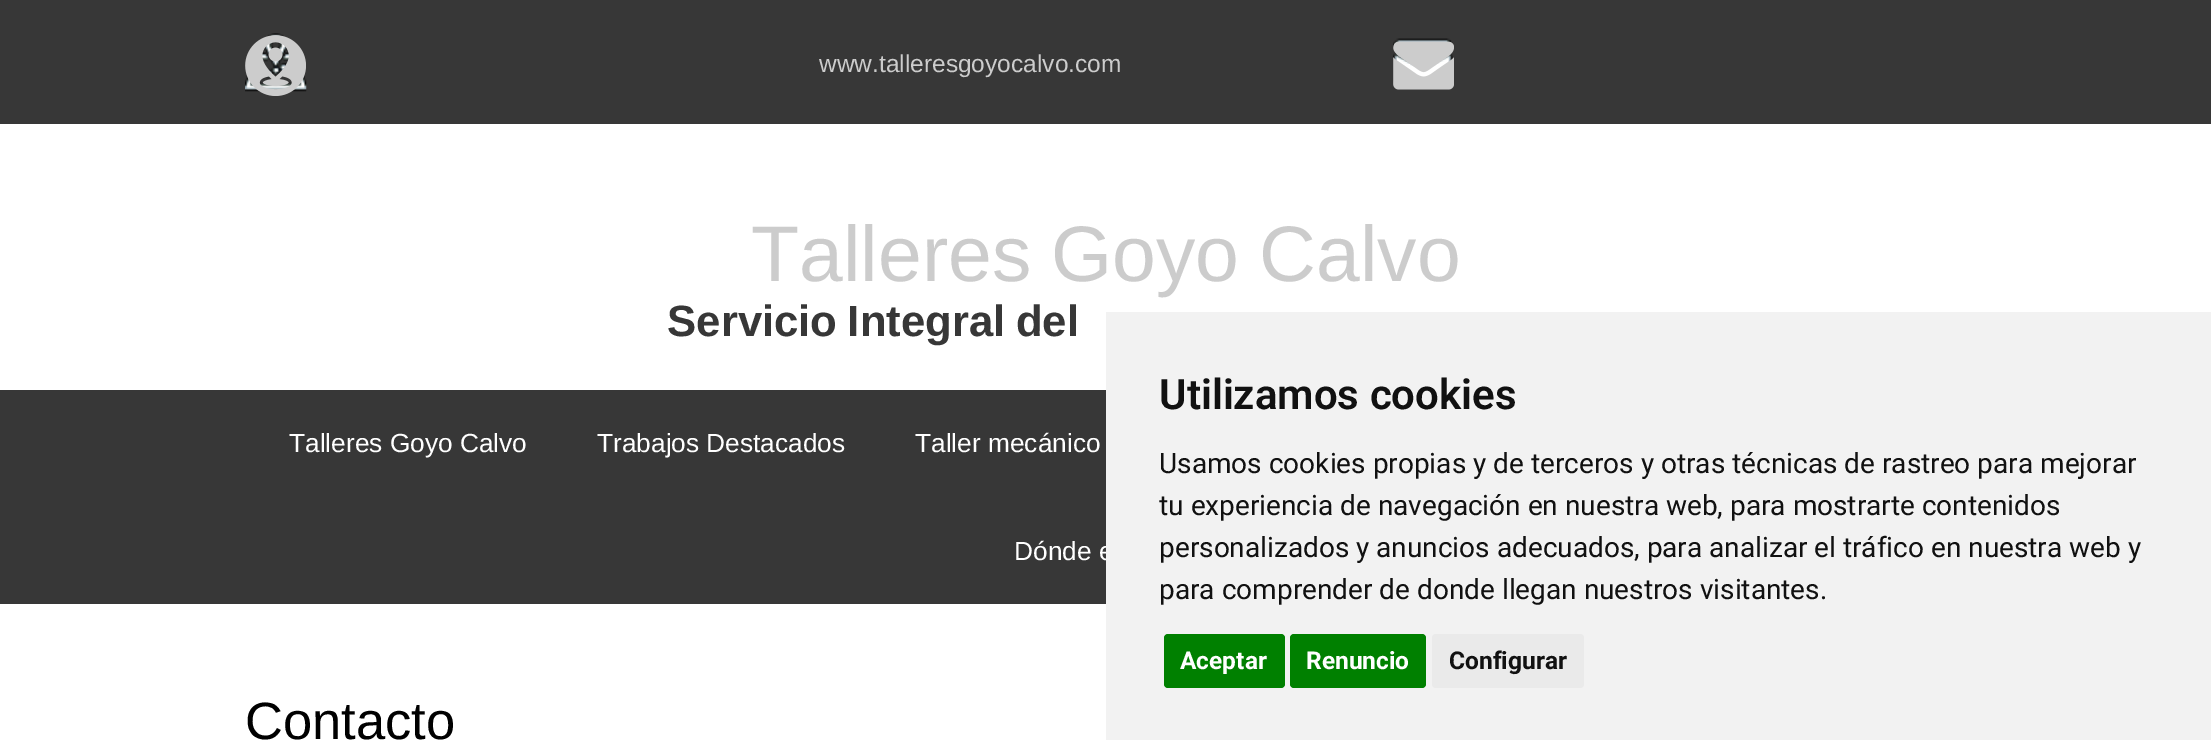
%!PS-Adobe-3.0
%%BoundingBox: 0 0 2211 740
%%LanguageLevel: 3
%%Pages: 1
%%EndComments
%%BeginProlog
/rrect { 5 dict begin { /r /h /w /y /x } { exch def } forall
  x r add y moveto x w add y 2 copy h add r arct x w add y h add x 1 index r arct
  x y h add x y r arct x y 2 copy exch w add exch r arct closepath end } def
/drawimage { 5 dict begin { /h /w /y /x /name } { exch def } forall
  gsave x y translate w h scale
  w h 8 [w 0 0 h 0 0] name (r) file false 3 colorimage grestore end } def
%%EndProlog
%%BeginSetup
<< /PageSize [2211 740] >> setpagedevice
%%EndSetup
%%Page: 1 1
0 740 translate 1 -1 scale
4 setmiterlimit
1 setgray
0 0 2211 740 rectfill
0.216 setgray
0 0 2211 124 rectfill
(images/1.raw) 245 33 62 59 drawimage
(images/2.raw) 245 35 61 61 drawimage
(images/3.raw) 1393 38 60 45 drawimage
(images/4.raw) 1393 41 61 49 drawimage
0 390 1106 214 rectfill
/LiberationSans-Regular [24.5 0 0 -24.5 0 0] selectfont
0.8 setgray
819 72 moveto (www.talleresgoyocalvo.com) show
/LiberationSans-Regular [78.75 0 0 -78.75 0 0] selectfont
751 281 moveto -2 0 32 (Talleres Goyo Calvo) widthshow
/LiberationSans-Bold [43.75 0 0 -43.75 0 0] selectfont
0.216 setgray
667 336 moveto -2 0 32 (Servicio Integral del) widthshow
/LiberationSans-Regular [26.25 0 0 -26.25 0 0] selectfont
1 setgray
289 452 moveto (Talleres Goyo Calvo) show
597 452 moveto (Trabajos Destacados) show
915 452 moveto (Taller mecánico) show
1014 560 moveto (Dónde e) show
/LiberationSans-Regular [52.5 0 0 -52.5 0 0] selectfont
0 setgray
245 739 moveto (Contacto) show
0.949 setgray
1106 312 1105 428 rectfill
/Roboto-SemiBold [42 0 0 -42 0 0] selectfont
0.067 setgray
1159 409 moveto (Utilizamos cookies) show
/Roboto-Regular [28 0 0 -28 0 0] selectfont
1159 473 moveto (Usamos cookies propias y de terceros y otras técnicas de rastreo para mejorar) show
1159 515 moveto (tu experiencia de navegación en nuestra web, para mostrarte contenidos) show
1159 557 moveto (personalizados y anuncios adecuados, para analizar el tráfico en nuestra web y) show
1159 599 moveto (para comprender de donde llegan nuestros visitantes.) show
0 0.502 0 setrgbcolor
1164 634 121 54 4 rrect fill
/Roboto-Bold [24.5 0 0 -24.5 0 0] selectfont
1 setgray
1180 669 moveto (Aceptar) show
0 0.502 0 setrgbcolor
1290 634 136 54 4 rrect fill
1 setgray
1306 669 moveto (Renuncio) show
0.918 setgray
1432 634 152 54 4 rrect fill
0.067 setgray
1449 669 moveto (Configurar) show
showpage
%%EOF
